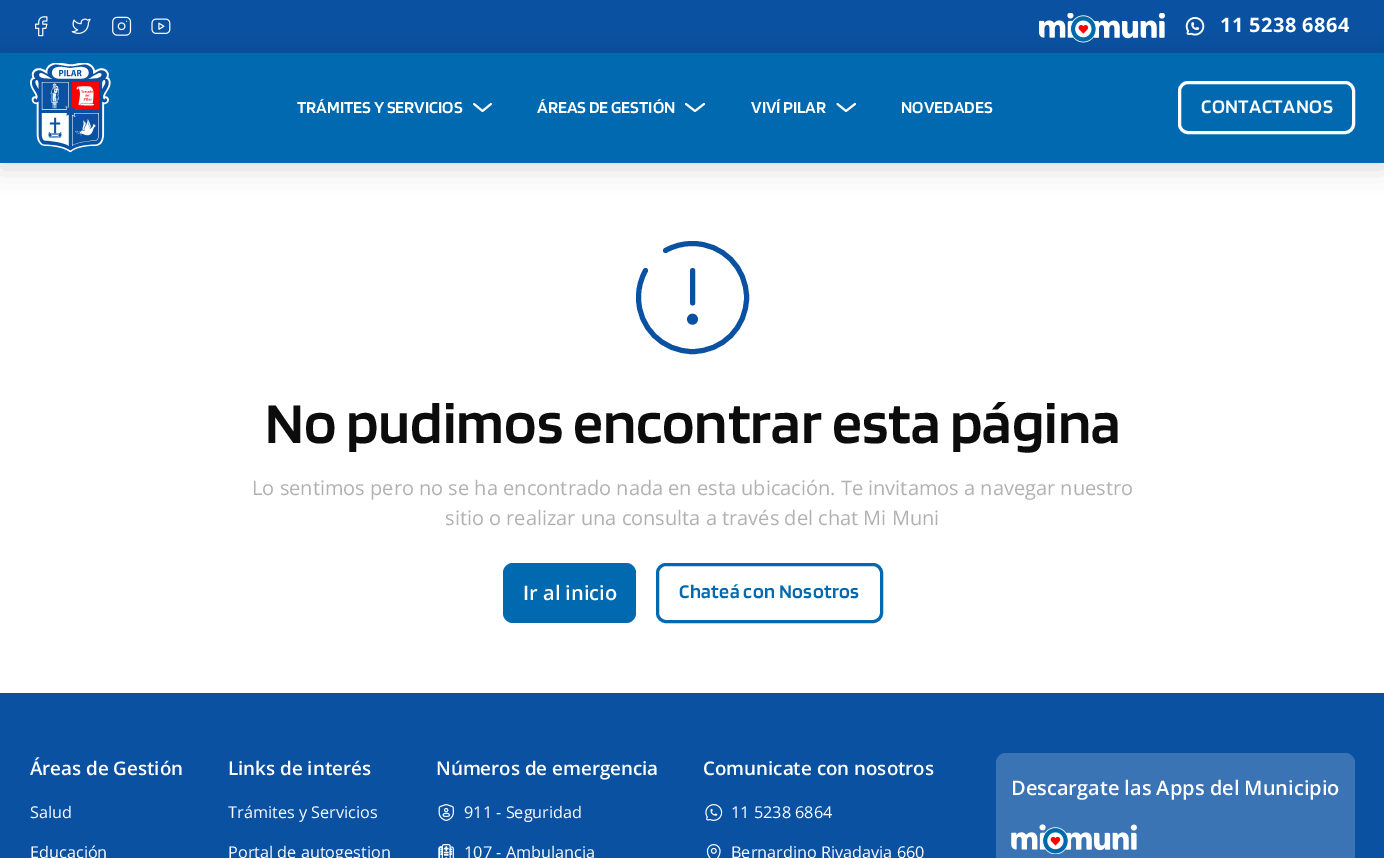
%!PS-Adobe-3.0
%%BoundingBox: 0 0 1384 858
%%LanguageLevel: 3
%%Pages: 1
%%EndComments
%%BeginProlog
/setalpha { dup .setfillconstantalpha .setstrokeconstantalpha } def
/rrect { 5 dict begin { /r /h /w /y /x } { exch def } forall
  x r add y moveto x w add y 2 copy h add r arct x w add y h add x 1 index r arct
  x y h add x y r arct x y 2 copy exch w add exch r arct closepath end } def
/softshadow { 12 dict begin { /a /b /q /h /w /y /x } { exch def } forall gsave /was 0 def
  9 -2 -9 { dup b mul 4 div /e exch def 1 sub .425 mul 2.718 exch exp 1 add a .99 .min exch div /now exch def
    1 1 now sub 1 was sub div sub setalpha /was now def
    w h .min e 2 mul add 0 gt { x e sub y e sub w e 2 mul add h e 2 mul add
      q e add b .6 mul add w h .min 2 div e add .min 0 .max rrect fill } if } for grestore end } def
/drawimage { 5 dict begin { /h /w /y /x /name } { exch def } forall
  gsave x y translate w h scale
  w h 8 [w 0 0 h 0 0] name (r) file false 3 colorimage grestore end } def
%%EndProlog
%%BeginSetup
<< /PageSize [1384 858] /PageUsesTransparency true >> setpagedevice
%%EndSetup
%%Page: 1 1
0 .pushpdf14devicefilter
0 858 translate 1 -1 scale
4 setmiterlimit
1 setgray
0 0 1384 858 rectfill
0.039 0.318 0.631 setrgbcolor
0 0 1384 53 rectfill
(images/1.raw) 35 16 13 21 drawimage
(images/2.raw) 71 18 20 16 drawimage
(images/3.raw) 112 16 20 20 drawimage
(images/4.raw) 151 18 20 16 drawimage
(images/5.raw) 1039 13 126 30 drawimage
(images/6.raw) 1185 17 20 19 drawimage
0 setgray
0 58 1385 110 0 12.5 0.15 softshadow
0 0.412 0.686 setrgbcolor
0 53 1384 110 rectfill
(images/7.raw) 30 63 81 90 drawimage
1 setgray
1.9 setlinewidth
1 setlinecap
1 setlinejoin
newpath 491 104 moveto 482.5 111 lineto 474 104 lineto stroke
newpath 704 104 moveto 695 111 lineto 686 104 lineto stroke
newpath 855 104 moveto 846 111 lineto 837.5 104 lineto stroke
3 setlinewidth
0 setlinecap
0 setlinejoin
1179.5 82.5 174 50 8.5 rrect stroke
0.039 0.318 0.631 setrgbcolor
5 setlinewidth
1 setlinecap
newpath 692.5 270.5 moveto 692.5 303 lineto stroke
newpath 692.5 319.2 2.9 0 360 arc closepath gsave fill grestore
0 setlinecap
stroke
1 setlinecap
newpath 665.5 250.5 moveto 673.5 246 682.5 243.5 692.5 243.5 curveto 722.5 243.5 746.5 267.5 746.5 297.5 curveto 746.5 327.5 722.5 351.5 692.5 351.5 curveto 662.5 351.5 638.5 327.5 638.5 297.5 curveto 638.5 287.5 641 278.5 645.5 270.5 curveto stroke
0 0.412 0.686 setrgbcolor
503 563 133 60 10 rrect fill
3 setlinewidth
0 setlinecap
657.5 564.5 224 57 8.5 rrect stroke
0.039 0.318 0.631 setrgbcolor
0 693 1384 165 rectfill
(images/8.raw) 438 804 16 17 drawimage
(images/9.raw) 438 844 16 14 drawimage
(images/10.raw) 705 804 18 17 drawimage
(images/11.raw) 706 844 15 14 drawimage
0.231 0.455 0.706 setrgbcolor
996 753 359 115 10 rrect fill
(images/12.raw) 1011 824 126 30 drawimage
/OpenSans-Bold [20 0 0 -20 0 0] selectfont
1 setgray
1220 32 moveto 0.4 0 (11 5238 6864) ashow
/Blinker-SemiBold [17.5 0 0 -17.5 0 0] selectfont
297 113 moveto (TRÁMITES Y SERVICIOS) show
537 113 moveto (ÁREAS DE GESTIÓN) show
751 113 moveto (VIVÍ PILAR) show
901 113 moveto (NOVEDADES) show
/Blinker-SemiBold [20 0 0 -20 0 0] selectfont
1201 113 moveto 0.4 0 (CONTACTANOS) ashow
/Blinker-SemiBold [60 0 0 -60 0 0] selectfont
0.047 setgray
265 443 moveto (No pudimos encontrar esta página) show
/OpenSans-Regular [20 0 0 -20 0 0] selectfont
0.694 setgray
252 495 moveto (Lo sentimos pero no se ha encontrado nada en esta ubicación. Te invitamos a navegar nuestro) show
445 525 moveto (sitio o realizar una consulta a través del chat Mi Muni) show
/OpenSans-SemiBold [20 0 0 -20 0 0] selectfont
1 setgray
523 600 moveto (Ir al inicio) show
/Blinker-SemiBold [20 0 0 -20 0 0] selectfont
0 0.412 0.686 setrgbcolor
679 598 moveto 0.4 0 (Chateá con Nosotros) ashow
/OpenSans-SemiBold [18.75 0 0 -18.75 0 0] selectfont
1 setgray
30 775 moveto (Áreas de Gestión) show
/OpenSans-Regular [16.25 0 0 -16.25 0 0] selectfont
30 818 moveto (Salud) show
30 858 moveto (Educación) show
/OpenSans-SemiBold [18.75 0 0 -18.75 0 0] selectfont
228 775 moveto (Links de interés) show
/OpenSans-Regular [16.25 0 0 -16.25 0 0] selectfont
228 818 moveto (Trámites y Servicios) show
228 858 moveto (Portal de autogestion) show
/OpenSans-SemiBold [18.75 0 0 -18.75 0 0] selectfont
436 775 moveto (Números de emergencia) show
/OpenSans-Regular [16.25 0 0 -16.25 0 0] selectfont
464 818 moveto (911 - Seguridad) show
464 858 moveto (107 - Ambulancia) show
/OpenSans-SemiBold [18.75 0 0 -18.75 0 0] selectfont
703 775 moveto (Comunicate con nosotros) show
/OpenSans-Regular [16.25 0 0 -16.25 0 0] selectfont
731 818 moveto (11 5238 6864) show
731 858 moveto (Bernardino Rivadavia 660) show
/OpenSans-SemiBold [20 0 0 -20 0 0] selectfont
1011 795 moveto (Descargate las Apps del Municipio) show
.poppdf14devicefilter showpage
%%EOF
